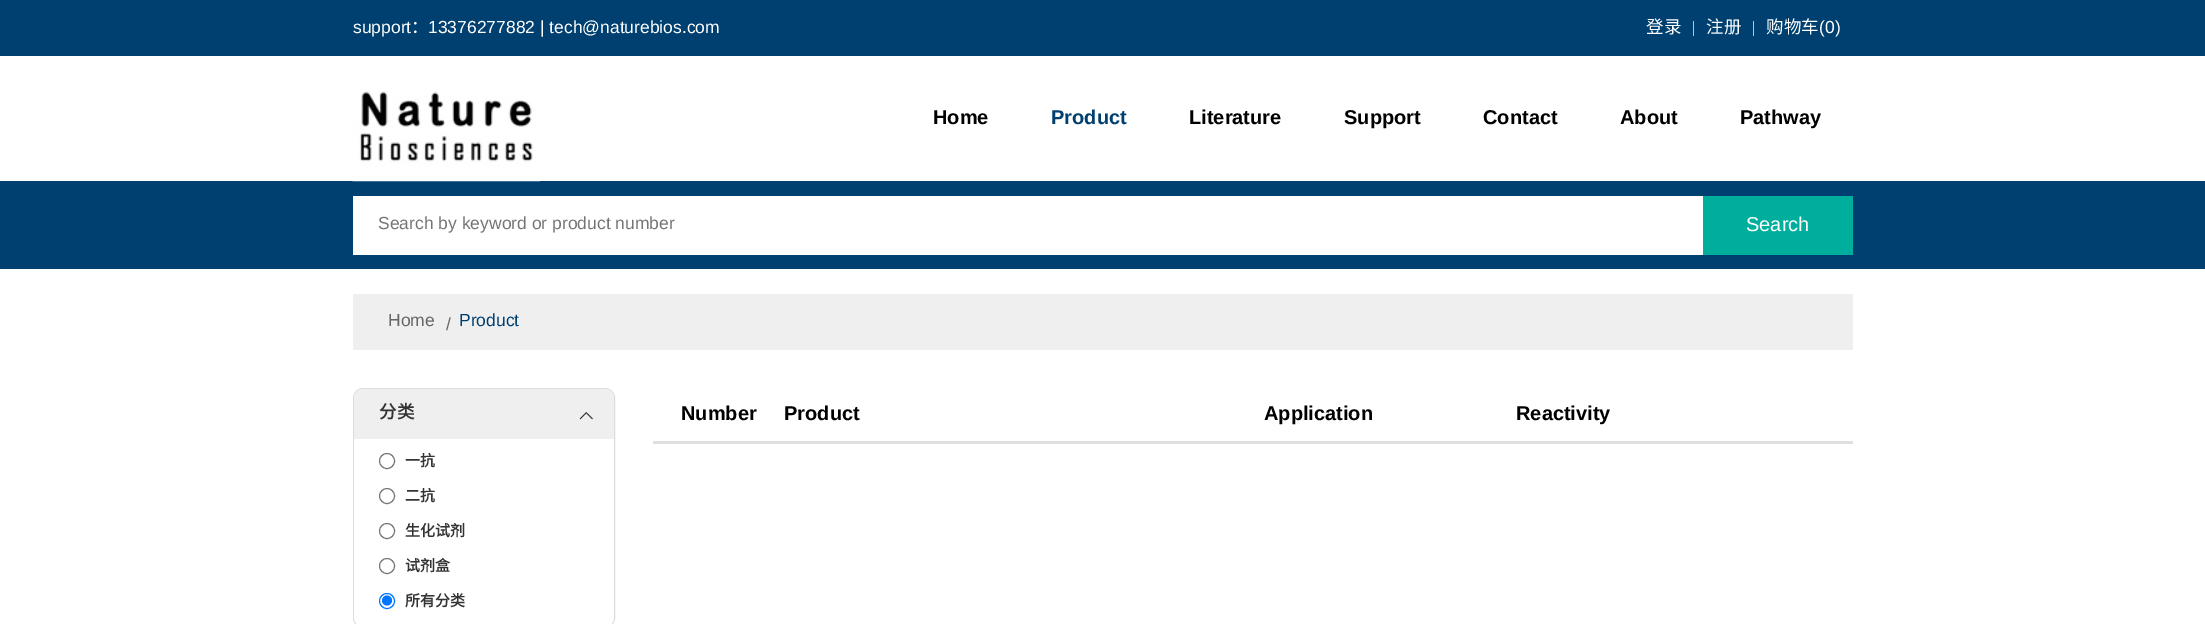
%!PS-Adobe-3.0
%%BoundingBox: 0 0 2205 624
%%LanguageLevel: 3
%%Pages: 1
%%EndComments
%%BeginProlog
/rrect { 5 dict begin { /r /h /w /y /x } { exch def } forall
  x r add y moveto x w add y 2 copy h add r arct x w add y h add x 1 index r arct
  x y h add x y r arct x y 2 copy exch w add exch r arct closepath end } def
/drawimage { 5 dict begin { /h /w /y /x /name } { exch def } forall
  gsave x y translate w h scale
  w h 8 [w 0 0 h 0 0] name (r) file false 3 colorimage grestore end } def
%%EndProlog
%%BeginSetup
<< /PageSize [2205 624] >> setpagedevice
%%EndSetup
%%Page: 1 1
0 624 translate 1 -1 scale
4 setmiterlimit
1 setgray
0 0 2205 624 rectfill
0 0.251 0.443 setrgbcolor
0 0 2205 56 rectfill
0.722 0.761 0.808 setrgbcolor
1693 21 1 15 rectfill
1753 21 1 15 rectfill
0 0.251 0.443 setrgbcolor
0 181 2205 88 rectfill
(images/1.raw) 352 91 188 91 drawimage
1 setgray
353 196 1350 59 rectfill
0 0.682 0.62 setrgbcolor
1703 196 150 59 rectfill
0.937 setgray
353 294 1500 56 rectfill
0.867 setgray
353.5 388.5 261 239 9.5 rrect stroke
0.937 setgray
newpath 363 389 moveto 605 389 lineto 610 389 614 393 614 398 curveto 614 439 lineto 354 439 lineto 354 398 lineto 354 393 358 389 363 389 curveto closepath fill
(images/2.raw) 579 412 14 8 drawimage
1 setgray
newpath 356.5 439 moveto 611.5 439 lineto 613 439 614 440 614 441.5 curveto 614 617 lineto 614 622 610 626 605 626 curveto 363 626 lineto 358 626 354 622 354 617 curveto 354 441.5 lineto 354 440 355 439 356.5 439 curveto closepath fill
0.463 setgray
newpath 387 461 7.5 0 360 arc closepath stroke
newpath 387 496 7.5 0 360 arc closepath stroke
newpath 387 531 7.5 0 360 arc closepath stroke
newpath 387 566 7.5 0 360 arc closepath stroke
0 0.459 1 setrgbcolor
newpath 387 601 7.5 0 360 arc closepath stroke
newpath 387 600.5 5 0 360 arc closepath fill
0.875 setgray
653 441 1200 3 rectfill
/LiberationSans-Regular [17.5 0 0 -17.5 0 0] selectfont
1 setgray
353 33 moveto (support) show
/NotoSansCJKSC-Regular [17.5 0 0 -17.5 0 0] selectfont
411 33 moveto (：) show
/LiberationSans-Regular [17.5 0 0 -17.5 0 0] selectfont
428 33 moveto (13376277882 | tech@naturebios.com) show
/NotoSansCJKSC-Regular [17.5 0 0 -17.5 0 0] selectfont
1646 33 moveto (登录) show
1706 33 moveto (注册) show
1766 33 moveto (购物车) show
/LiberationSans-Regular [17.5 0 0 -17.5 0 0] selectfont
1819 33 moveto (\(0\)) show
/LiberationSans-Bold [20 0 0 -20 0 0] selectfont
0 setgray
933 124 moveto (Home) show
0 0.251 0.443 setrgbcolor
1051 124 moveto (Product) show
0 setgray
1189 124 moveto (Literature) show
1344 124 moveto (Support) show
1483 124 moveto (Contact) show
1620 124 moveto (About) show
1740 124 moveto (Pathway) show
/LiberationSans-Regular [17.5 0 0 -17.5 0 0] selectfont
0.459 setgray
378 229 moveto (Search by keyword or product number) show
/LiberationSans-Regular [20 0 0 -20 0 0] selectfont
1 setgray
1746 231 moveto (Search) show
/LiberationSans-Regular [17.5 0 0 -17.5 0 0] selectfont
0.4 setgray
388 326 moveto (Home) show
446 330 moveto (/) show
0 0.251 0.443 setrgbcolor
459 326 moveto (Product) show
/NotoSansCJKSC-Bold [17.5 0 0 -17.5 0 0] selectfont
0.2 setgray
379 418 moveto (分类) show
/NotoSansCJKSC-Bold [15 0 0 -15 0 0] selectfont
405 466 moveto (一抗) show
405 501 moveto (二抗) show
405 536 moveto (生化试剂) show
405 571 moveto (试剂盒) show
405 606 moveto (所有分类) show
/LiberationSans-Bold [20 0 0 -20 0 0] selectfont
0 setgray
681 420 moveto (Number) show
784 420 moveto (Product) show
1264 420 moveto (Application) show
1516 420 moveto (Reactivity) show
showpage
%%EOF
